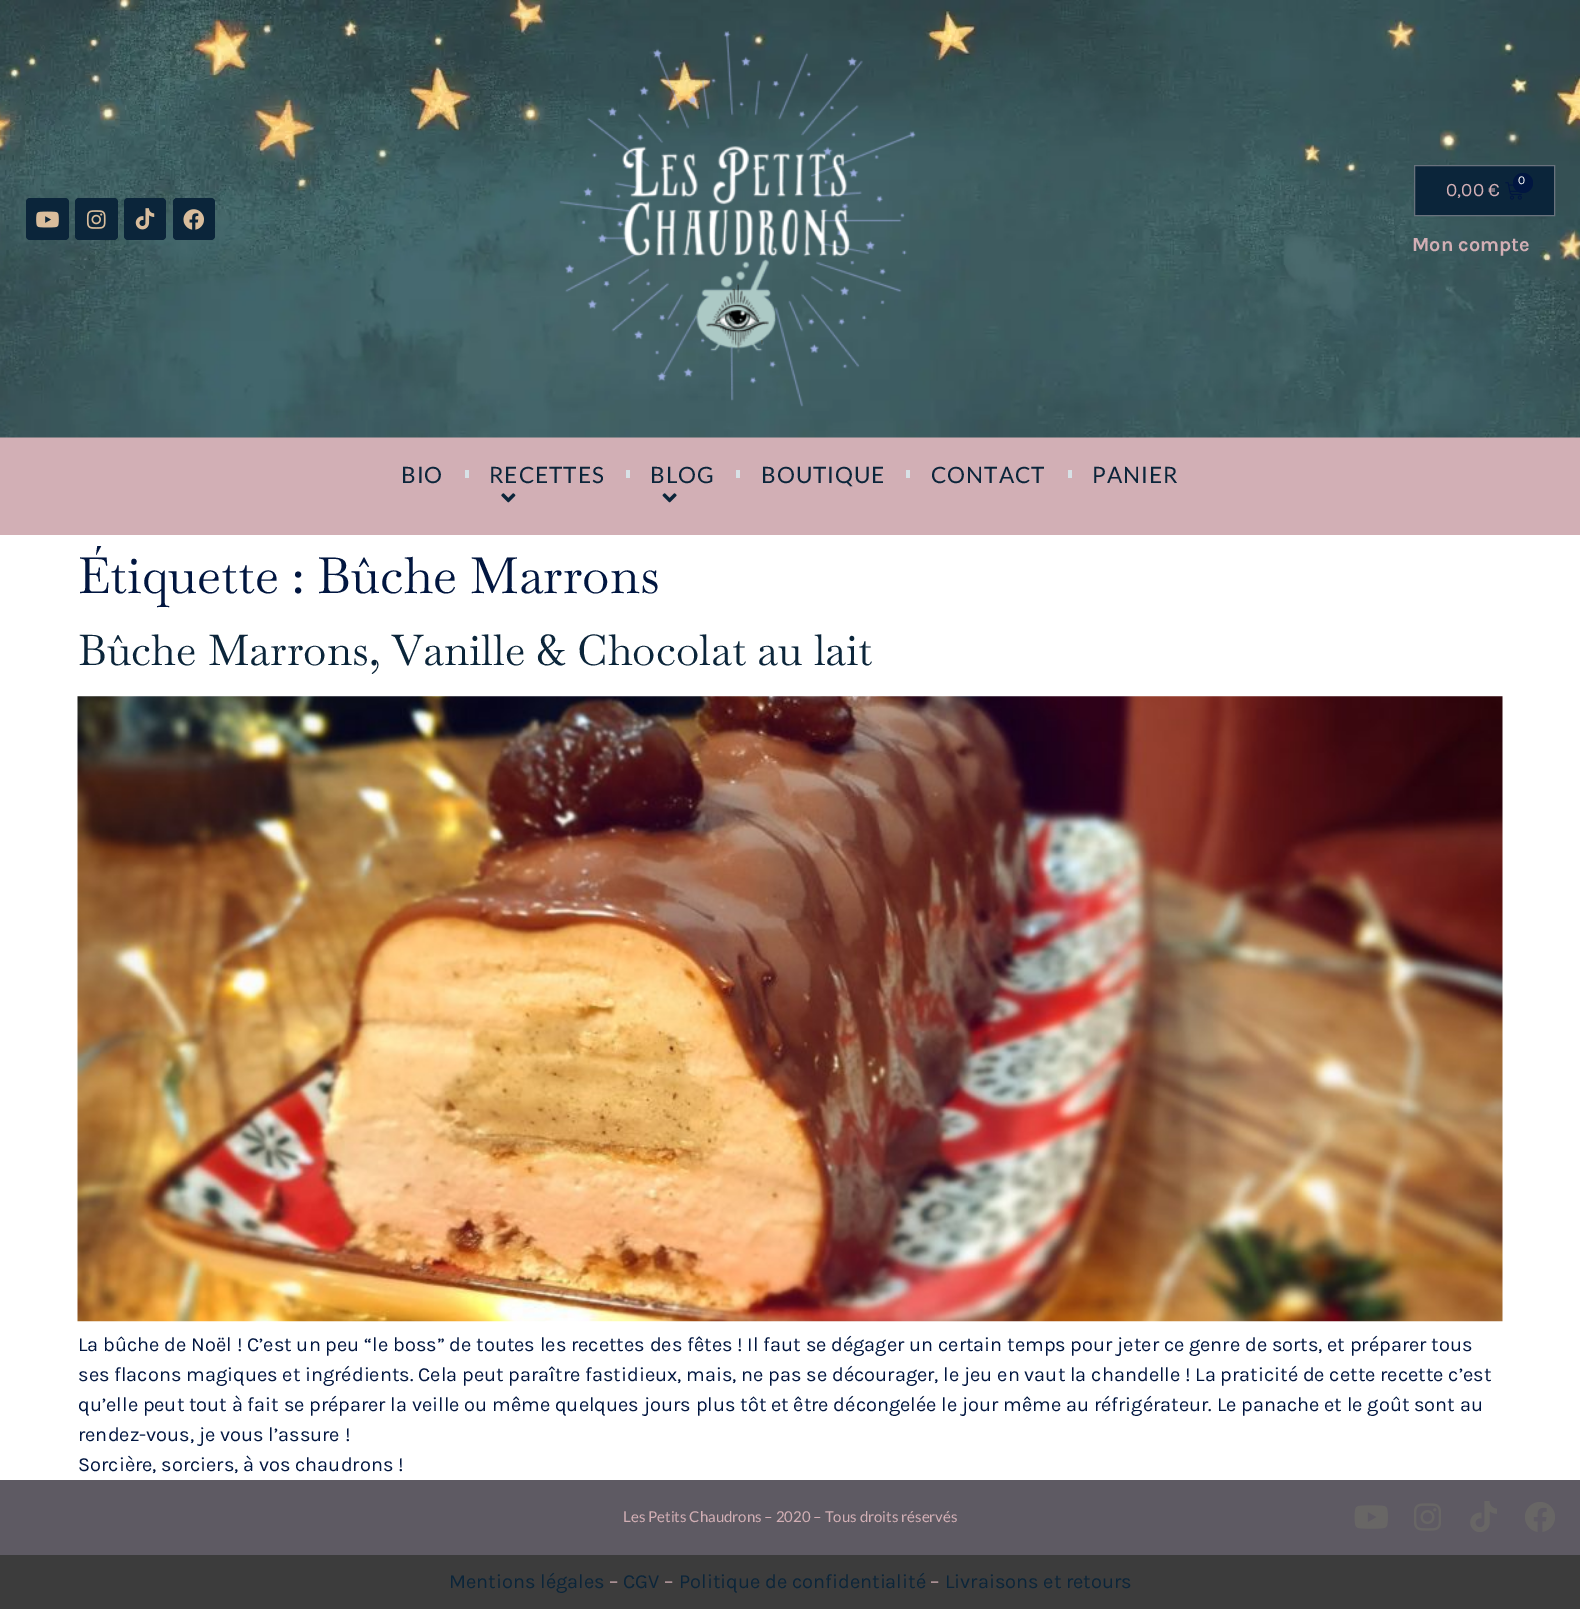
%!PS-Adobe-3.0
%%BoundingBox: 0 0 1580 1609
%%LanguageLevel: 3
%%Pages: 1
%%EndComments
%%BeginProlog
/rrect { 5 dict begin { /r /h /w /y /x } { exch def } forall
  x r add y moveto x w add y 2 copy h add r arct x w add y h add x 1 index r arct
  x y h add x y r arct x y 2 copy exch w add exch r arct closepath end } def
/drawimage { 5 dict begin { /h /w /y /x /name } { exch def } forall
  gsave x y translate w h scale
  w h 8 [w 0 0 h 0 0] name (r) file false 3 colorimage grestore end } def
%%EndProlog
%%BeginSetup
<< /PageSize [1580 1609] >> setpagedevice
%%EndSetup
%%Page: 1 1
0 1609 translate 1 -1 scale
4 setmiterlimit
1 setgray
0 0 1580 1609 rectfill
0.824 0.686 0.71 setrgbcolor
0 437 1580 98 rectfill
(images/1.raw) 0 0 1580 438 drawimage
0.043 0.145 0.227 setrgbcolor
26 198 43 42 4 rrect fill
(images/2.raw) 36 211 23 17 drawimage
75 198 43 42 4 rrect fill
(images/3.raw) 86 210 20 19 drawimage
124 198 42 42 4 rrect fill
(images/4.raw) 135 208 20 22 drawimage
173 198 42 42 4 rrect fill
(images/5.raw) 183 209 21 21 drawimage
(images/6.raw) 559 31 357 376 drawimage
newpath 1414.5 165.5 moveto 1554.5 165.5 lineto 1554.5 215.5 lineto 1414.5 215.5 lineto closepath gsave fill grestore
0.412 0.447 0.49 setrgbcolor
stroke
(images/7.raw) 1505 182 17 18 drawimage
0.004 0.086 0.251 setrgbcolor
newpath 1523 183 10 0 360 arc closepath fill
0.843 0.882 0.902 setrgbcolor
465 470 4 8 rectfill
(images/8.raw) 501 493 15 10 drawimage
626 470 4 8 rectfill
(images/9.raw) 662 493 15 10 drawimage
736 470 4 8 rectfill
906 470 4 8 rectfill
1068 470 4 8 rectfill
(images/10.raw) 77 696 1426 626 drawimage
0.369 0.353 0.388 setrgbcolor
0 1480 1580 75 rectfill
(images/11.raw) 1354 1505 34 24 drawimage
(images/12.raw) 1414 1503 27 28 drawimage
(images/13.raw) 1470 1501 27 31 drawimage
(images/14.raw) 1525 1502 30 30 drawimage
0.235 setgray
0 1555 1580 54 rectfill
/Karla-Regular [12 0 0 -12 0 0] selectfont
1 setgray
1518 184 moveto (0) show
/Karla-Regular [19 0 0 -19 0 0] selectfont
0.824 0.686 0.71 setrgbcolor
1446 196 moveto (0,00 €) show
/Karla-Bold [20 0 0 -20 0 0] selectfont
1412 251 moveto (Mon compte) show
/Lato-Regular [22.5 0 0 -22.5 0 0] selectfont
0.043 0.145 0.227 setrgbcolor
401 483 moveto 1 0 (BIO) ashow
489 483 moveto 1 0 (RECETTES) ashow
650 483 moveto 1 0 (BLOG) ashow
761 483 moveto 1 0 (BOUTIQUE) ashow
931 483 moveto 1 0 (CONTACT) ashow
1092 483 moveto 1 0 (PANIER) ashow
/Baskervville-Regular [50 0 0 -50 0 0] selectfont
0.004 0.086 0.251 setrgbcolor
78 593 moveto (Étiquette : Bûche Marrons) show
/Baskervville-Regular [42.5 0 0 -42.5 0 0] selectfont
0.043 0.145 0.227 setrgbcolor
78 665 moveto (Bûche Marrons, Vanille & Chocolat au lait) show
/Karla-Regular [20 0 0 -20 0 0] selectfont
0.004 0.086 0.251 setrgbcolor
78 1351 moveto (La bûche de Noël ! C’est un peu “le boss” de toutes les recettes des fêtes ! Il faut se dégager un certain temps pour jeter ce genre de sorts, et préparer tous) show
78 1381 moveto (ses flacons magiques et ingrédients. Cela peut paraître fastidieux, mais, ne pas se décourager, le jeu en vaut la chandelle ! La praticité de cette recette c’est) show
78 1411 moveto (qu’elle peut tout à fait se préparer la veille ou même quelques jours plus tôt et être décongelée le jour même au réfrigérateur. Le panache et le goût sont au) show
78 1441 moveto (rendez-vous, je vous l’assure !) show
78 1471 moveto (Sorcière, sorciers, à vos chaudrons !) show
/Lato-Regular [15 0 0 -15 0 0] selectfont
0.824 0.686 0.71 setrgbcolor
623 1522 moveto (Les Petits Chaudrons – 2020 – Tous droits réservés) show
/Karla-Regular [20 0 0 -20 0 0] selectfont
0.043 0.145 0.227 setrgbcolor
449 1588 moveto (Mentions légales) show
0.824 0.686 0.71 setrgbcolor
609 1588 moveto (–) show
0.043 0.145 0.227 setrgbcolor
623 1588 moveto (CGV) show
0.824 0.686 0.71 setrgbcolor
664 1588 moveto (–) show
0.043 0.145 0.227 setrgbcolor
679 1588 moveto (Politique de confidentialité) show
0.824 0.686 0.71 setrgbcolor
930 1588 moveto (–) show
0.043 0.145 0.227 setrgbcolor
945 1588 moveto (Livraisons et retours) show
showpage
%%EOF
